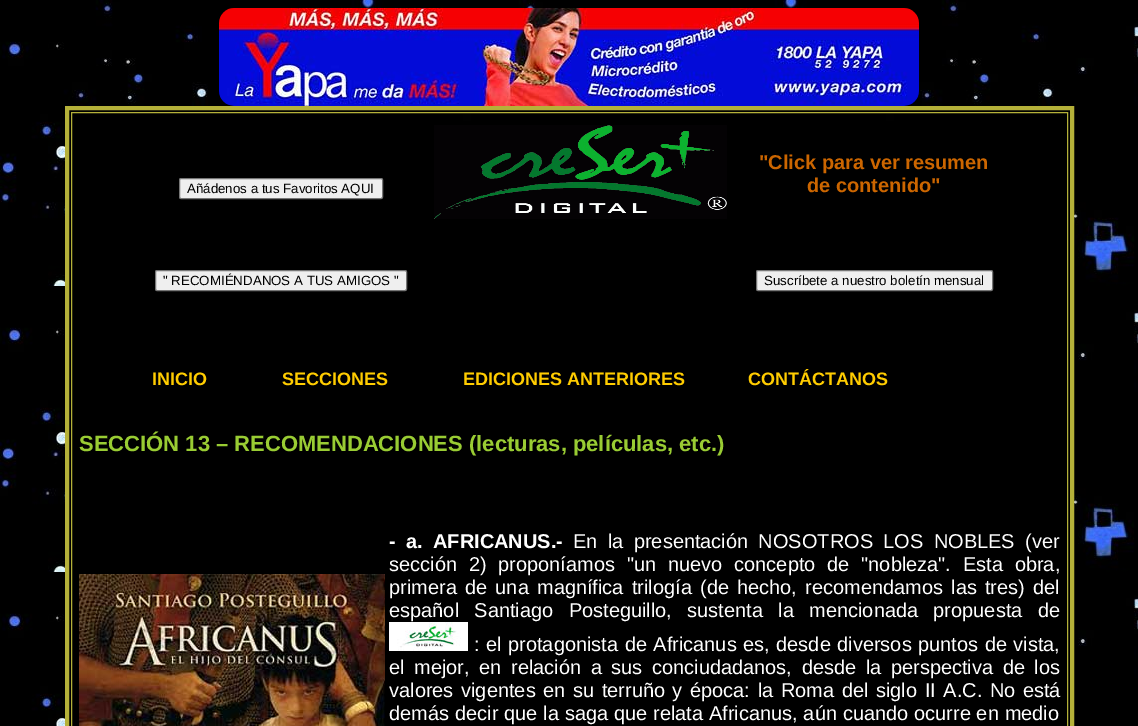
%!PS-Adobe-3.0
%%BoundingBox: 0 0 1138 726
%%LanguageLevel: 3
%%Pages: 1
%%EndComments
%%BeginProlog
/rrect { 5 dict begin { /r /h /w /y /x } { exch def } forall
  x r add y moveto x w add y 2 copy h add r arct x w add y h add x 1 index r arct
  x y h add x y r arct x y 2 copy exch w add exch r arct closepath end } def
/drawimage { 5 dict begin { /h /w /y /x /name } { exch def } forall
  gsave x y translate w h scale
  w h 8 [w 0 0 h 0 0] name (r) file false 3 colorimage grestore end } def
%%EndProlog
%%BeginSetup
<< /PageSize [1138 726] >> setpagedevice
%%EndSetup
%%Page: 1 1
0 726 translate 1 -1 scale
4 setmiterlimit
1 setgray
0 0 1138 726 rectfill
(images/1.raw) 0 0 1138 726 drawimage
(images/2.raw) 219 8 700 98 drawimage
0 setgray
69 121 1001 605 rectfill
0.71 0.694 0.224 setrgbcolor
4 setlinewidth
67 108 1005 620 rectstroke
1 setlinewidth
71.5 112.5 996 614 rectstroke
0.937 setgray
179.5 178.5 203 20 1.5 rrect gsave fill grestore
0.463 setgray
stroke
(images/3.raw) 434 125 293 94 drawimage
0.937 setgray
155.5 270.5 251 20 1.5 rrect gsave fill grestore
0.463 setgray
stroke
0.937 setgray
756.5 270.5 236 20 1.5 rrect gsave fill grestore
0.463 setgray
stroke
(images/4.raw) 79 574 306 152 drawimage
(images/5.raw) 389 622 79 29 drawimage
/LiberationSans-Regular [13.3 0 0 -13.3 0 0] selectfont
0 setgray
187 193 moveto (Añádenos a tus Favoritos AQUI) show
/LiberationSans-Bold [20 0 0 -20 0 0] selectfont
0.8 0.4 0 setrgbcolor
759 169 moveto ("Click para ver resumen) show
807 192 moveto (de contenido") show
/LiberationSans-Regular [13.3 0 0 -13.3 0 0] selectfont
0 setgray
163 285 moveto (" RECOMIÉNDANOS A TUS AMIGOS ") show
764 285 moveto (Suscríbete a nuestro boletín mensual) show
/LiberationSans-Bold [18 0 0 -18 0 0] selectfont
1 0.8 0 setrgbcolor
152 385 moveto (INICIO) show
282 385 moveto (SECCIONES) show
463 385 moveto (EDICIONES ANTERIORES) show
748 385 moveto (CONTÁCTANOS) show
/LiberationSans-Bold [22 0 0 -22 0 0] selectfont
0.6 0.8 0.2 setrgbcolor
79 451 moveto (SECCIÓN 13 – RECOMENDACIONES \(lecturas, películas, etc.\)) show
/LiberationSans-Bold [20 0 0 -20 0 0] selectfont
1 setgray
389 548 moveto 4.75 0 32 (- a. AFRICANUS.-) widthshow
/LiberationSans-Regular [20 0 0 -20 0 0] selectfont
573 548 moveto 4.75 0 32 (En la presentación NOSOTROS LOS NOBLES \(ver) widthshow
389 571 moveto 6.25 0 32 (sección 2\) proponíamos "un nuevo concepto de "nobleza". Esta obra,) widthshow
389 594 moveto 2.6 0 32 (primera de una magnífica trilogía \(de hecho, recomendamos las tres\) del) widthshow
389 617 moveto 9.75 0 32 (español Santiago Posteguillo, sustenta la mencionada propuesta de) widthshow
474 651 moveto 0.9 0 32 (: el protagonista de Africanus es, desde diversos puntos de vista,) widthshow
389 674 moveto 4 0 32 (el mejor, en relación a sus conciudadanos, desde la perspectiva de los) widthshow
389 697 moveto 2 0 32 (valores vigentes en su terruño y época: la Roma del siglo II A.C. No está) widthshow
389 720 moveto 0.25 0 32 (demás decir que la saga que relata Africanus, aún cuando ocurre en medio) widthshow
showpage
%%EOF
